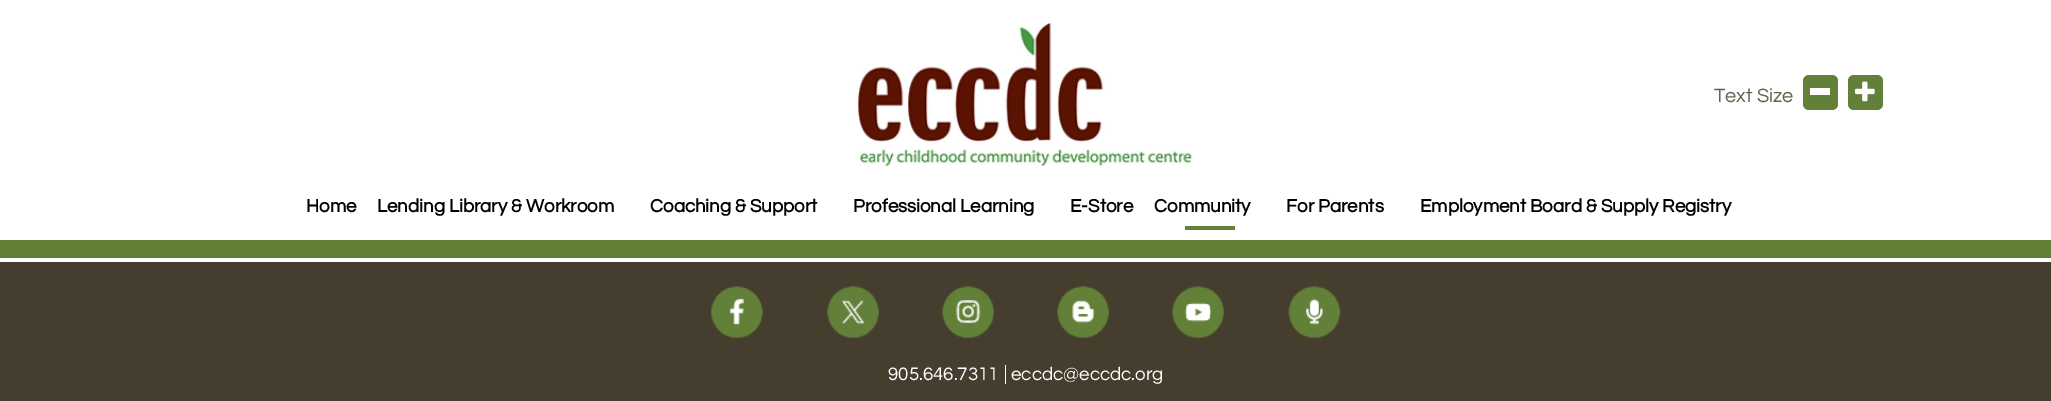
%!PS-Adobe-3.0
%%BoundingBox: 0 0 2051 401
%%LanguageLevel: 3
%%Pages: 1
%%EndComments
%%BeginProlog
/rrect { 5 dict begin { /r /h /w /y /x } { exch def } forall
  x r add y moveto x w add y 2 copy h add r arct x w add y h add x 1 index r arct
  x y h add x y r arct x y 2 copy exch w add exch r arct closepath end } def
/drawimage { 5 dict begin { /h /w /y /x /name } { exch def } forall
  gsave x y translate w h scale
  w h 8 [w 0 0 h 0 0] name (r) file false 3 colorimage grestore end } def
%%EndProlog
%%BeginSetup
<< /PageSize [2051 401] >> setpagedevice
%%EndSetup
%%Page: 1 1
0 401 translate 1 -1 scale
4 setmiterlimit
0.271 0.243 0.18 setrgbcolor
0 0 2051 401 rectfill
1 setgray
0 0 2051 240 rectfill
(images/1.raw) 857 22 335 145 drawimage
0.384 0.502 0.22 setrgbcolor
1803 75 35 35 6 rrect fill
1 setgray
1810 88 20 7 rectfill
0.384 0.502 0.22 setrgbcolor
1848 75 35 35 6 rrect fill
(images/2.raw) 1855 81 20 21 drawimage
1185 226 50 4 rectfill
0 240 2051 18 rectfill
1 setgray
0 258 2051 4 rectfill
(images/3.raw) 711 286 52 52 drawimage
(images/4.raw) 827 286 52 52 drawimage
(images/5.raw) 942 286 52 52 drawimage
(images/6.raw) 1057 286 52 52 drawimage
(images/7.raw) 1172 286 52 52 drawimage
(images/8.raw) 1288 286 52 52 drawimage
1005 365 1 19 rectfill
/Questrial-Regular [20 0 0 -20 0 0] selectfont
0.4 0.369 0.31 setrgbcolor
1714 102 moveto (Text Size) show
/Questrial-Bold [18.75 0 0 -18.75 0 0] selectfont
0 setgray
306 212 moveto (Home) show
377 212 moveto (Lending Library & Workroom) show
650 212 moveto (Coaching & Support) show
853 212 moveto (Professional Learning) show
1070 212 moveto (E-Store) show
1154 212 moveto (Community) show
1286 212 moveto (For Parents) show
1420 212 moveto (Employment Board & Supply Registry) show
/Questrial-Regular [18.75 0 0 -18.75 0 0] selectfont
1 setgray
888 380 moveto (905.646.7311) show
1011 380 moveto (eccdc@eccdc.org) show
showpage
%%EOF
